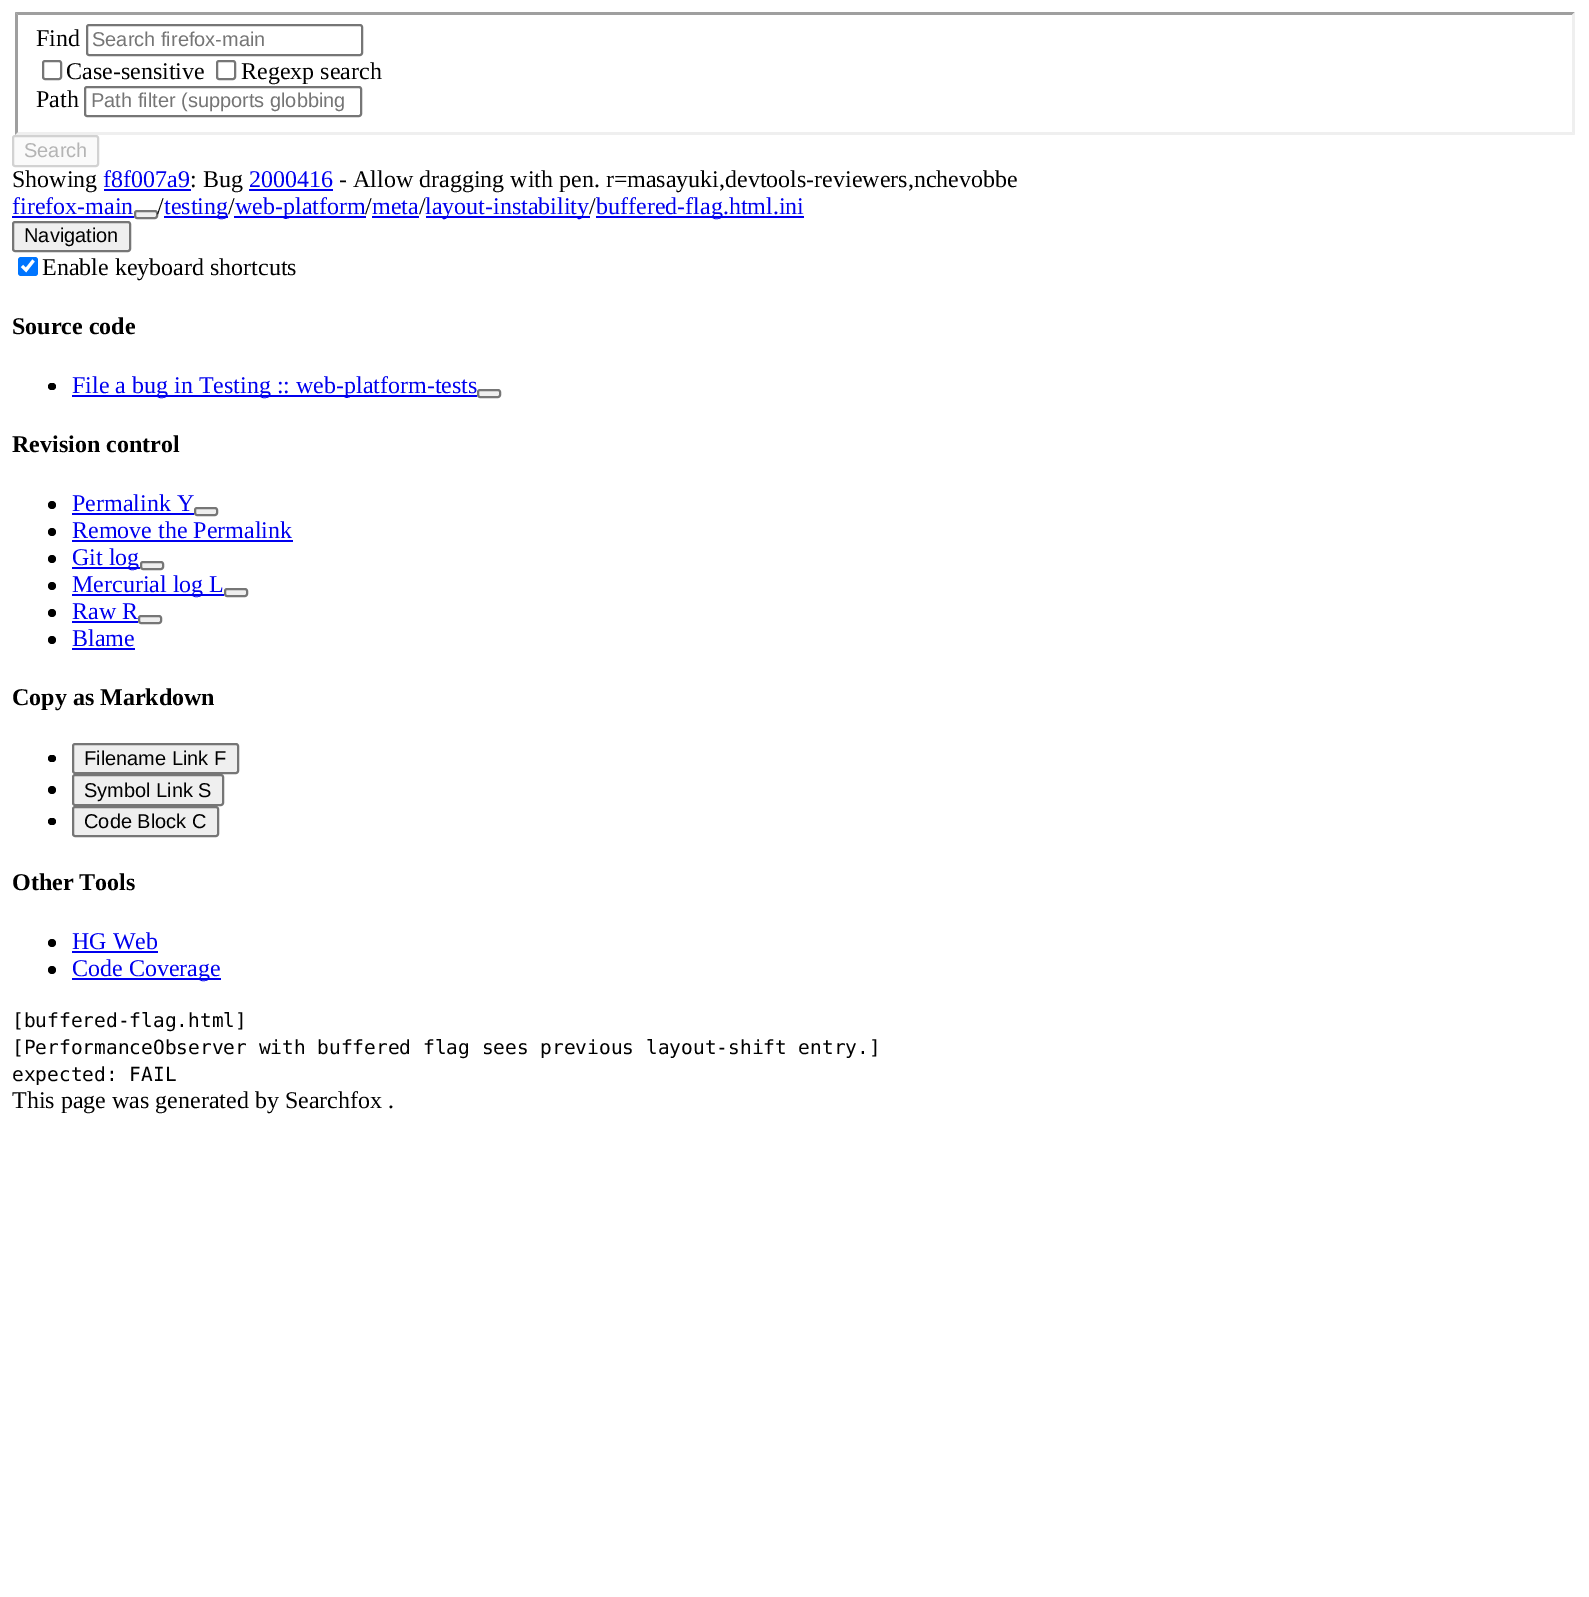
%!PS-Adobe-3.0
%%BoundingBox: 0 0 1589 1597
%%LanguageLevel: 3
%%Pages: 1
%%EndComments
%%BeginProlog
/rrect { 5 dict begin { /r /h /w /y /x } { exch def } forall
  x r add y moveto x w add y 2 copy h add r arct x w add y h add x 1 index r arct
  x y h add x y r arct x y 2 copy exch w add exch r arct closepath end } def
%%EndProlog
%%BeginSetup
<< /PageSize [1589 1597] >> setpagedevice
%%EndSetup
%%Page: 1 1
0 1597 translate 1 -1 scale
4 setmiterlimit
1 setgray
0 0 1589 1597 rectfill
0.624 setgray
newpath 15 12 moveto 1575 12 lineto 1572 15 lineto 18 15 lineto closepath fill
0.937 setgray
newpath 1575 12 moveto 1575 135 lineto 1572 132 lineto 1572 15 lineto closepath fill
newpath 1575 135 moveto 15 135 lineto 18 132 lineto 1572 132 lineto closepath fill
0.624 setgray
newpath 15 135 moveto 15 12 lineto 18 15 lineto 18 132 lineto closepath fill
0.463 setgray
2 setlinewidth
87 25 275 30 2 rrect stroke
43 61 18 18 2 rrect stroke
217 61 18 18 2 rrect stroke
85 87 276 29 2 rrect stroke
0.98 setgray
13 136 85 30 2 rrect gsave fill grestore
0.824 setgray
stroke
0 0 0.933 setrgbcolor
104 189 87 2 rectfill
249 189 84 2 rectfill
12 216 122 2 rectfill
0.937 setgray
135 211 22 7 2 rrect gsave fill grestore
0.463 setgray
stroke
0 0 0.933 setrgbcolor
164 216 64 2 rectfill
234 216 132 2 rectfill
372 216 47 2 rectfill
426 216 164 2 rectfill
596 216 208 2 rectfill
0.937 setgray
13 222 117 29 2 rrect gsave fill grestore
0.463 setgray
stroke
0 0.459 1 setrgbcolor
18 257 20 19 3 rrect fill
1 setgray
3.1 setlinewidth
newpath 22 266 moveto 26 270 lineto 33.5 260.5 lineto stroke
0 setgray
48 383 8 7 3.5 rrect fill
0 0 0.933 setrgbcolor
72 395 405 2 rectfill
0.937 setgray
478 390 22 7 2 rrect gsave fill grestore
0.463 setgray
2 setlinewidth
stroke
0 setgray
newpath 52 505 4 0 360 arc closepath fill
0 0 0.933 setrgbcolor
72 513 122 2 rectfill
0.937 setgray
195 508 22 7 2 rrect gsave fill grestore
0.463 setgray
stroke
0 setgray
newpath 52 532 4 0 360 arc closepath fill
0 0 0.933 setrgbcolor
72 540 221 2 rectfill
0 setgray
newpath 52 559 4 0 360 arc closepath fill
0 0 0.933 setrgbcolor
72 567 68 2 rectfill
0.937 setgray
141 562 22 7 2 rrect gsave fill grestore
0.463 setgray
stroke
0 setgray
newpath 52 586 4 0 360 arc closepath fill
0 0 0.933 setrgbcolor
72 594 152 2 rectfill
0.937 setgray
225 589 22 7 2 rrect gsave fill grestore
0.463 setgray
stroke
0 setgray
newpath 52 613 4 0 360 arc closepath fill
0 0 0.933 setrgbcolor
72 621 66 2 rectfill
0.937 setgray
139 616 22 7 2 rrect gsave fill grestore
0.463 setgray
stroke
0 setgray
newpath 52 640 4 0 360 arc closepath fill
0 0 0.933 setrgbcolor
72 648 63 2 rectfill
0 setgray
48 755 8 7 3.5 rrect fill
0.937 setgray
73 744 165 29 2 rrect gsave fill grestore
0.463 setgray
stroke
0 setgray
newpath 52 790 4 0 360 arc closepath fill
0.937 setgray
73 775 150 30 2 rrect gsave fill grestore
0.463 setgray
stroke
0 setgray
48 818 8 7 3.5 rrect fill
0.937 setgray
73 807 145 29 2 rrect gsave fill grestore
0.463 setgray
stroke
0 setgray
newpath 52 943 4 0 360 arc closepath fill
0 0 0.933 setrgbcolor
72 951 86 2 rectfill
0 setgray
newpath 52 970 4 0 360 arc closepath fill
0 0 0.933 setrgbcolor
72 978 149 2 rectfill
/LiberationSerif-Regular [24 0 0 -24 0 0] selectfont
0 setgray
36 46 moveto (Find) show
/LiberationSans-Regular [20 0 0 -20 0 0] selectfont
0.459 setgray
92 46 moveto (Search firefox-main) show
/LiberationSerif-Regular [24 0 0 -24 0 0] selectfont
0 setgray
66 79 moveto (Case-sensitive) show
241 79 moveto (Regexp search) show
36 107 moveto (Path) show
/LiberationSans-Regular [20 0 0 -20 0 0] selectfont
0.459 setgray
91 107 moveto (Path filter \(supports globbing) show
0.706 setgray
24 157 moveto (Search) show
/LiberationSerif-Regular [24 0 0 -24 0 0] selectfont
0 setgray
12 187 moveto (Showing) show
0 0 0.933 setrgbcolor
103 187 moveto (f8f007a9) show
0 setgray
190 187 moveto (: Bug) show
0 0 0.933 setrgbcolor
249 187 moveto (2000416) show
0 setgray
339 187 moveto (- Allow dragging with pen. r=masayuki,devtools-reviewers,nchevobbe) show
0 0 0.933 setrgbcolor
12 214 moveto (firefox-main) show
0 setgray
157 214 moveto (/) show
0 0 0.933 setrgbcolor
164 214 moveto (testing) show
0 setgray
228 214 moveto (/) show
0 0 0.933 setrgbcolor
235 214 moveto (web-platform) show
0 setgray
365 214 moveto (/) show
0 0 0.933 setrgbcolor
372 214 moveto (meta) show
0 setgray
419 214 moveto (/) show
0 0 0.933 setrgbcolor
425 214 moveto (layout-instability) show
0 setgray
589 214 moveto (/) show
0 0 0.933 setrgbcolor
596 214 moveto (buffered-flag.html.ini) show
/LiberationSans-Regular [20 0 0 -20 0 0] selectfont
0 setgray
24 242 moveto (Navigation) show
/LiberationSerif-Regular [24 0 0 -24 0 0] selectfont
42 275 moveto (Enable keyboard shortcuts) show
/LiberationSerif-Bold [24 0 0 -24 0 0] selectfont
12 334 moveto (Source code) show
/LiberationSerif-Regular [24 0 0 -24 0 0] selectfont
0 0 0.933 setrgbcolor
72 393 moveto (File a bug in Testing :: web-platform-tests) show
/LiberationSerif-Bold [24 0 0 -24 0 0] selectfont
0 setgray
12 452 moveto (Revision control) show
/LiberationSerif-Regular [24 0 0 -24 0 0] selectfont
0 0 0.933 setrgbcolor
72 511 moveto (Permalink Y) show
72 538 moveto (Remove the Permalink) show
72 565 moveto (Git log) show
72 592 moveto (Mercurial log L) show
72 619 moveto (Raw R) show
72 646 moveto (Blame) show
/LiberationSerif-Bold [24 0 0 -24 0 0] selectfont
0 setgray
12 705 moveto (Copy as Markdown) show
/LiberationSans-Regular [20 0 0 -20 0 0] selectfont
84 765 moveto (Filename Link F) show
84 797 moveto (Symbol Link S) show
84 828 moveto (Code Block C) show
/LiberationSerif-Bold [24 0 0 -24 0 0] selectfont
12 890 moveto (Other Tools) show
/LiberationSerif-Regular [24 0 0 -24 0 0] selectfont
0 0 0.933 setrgbcolor
72 949 moveto (HG Web) show
72 976 moveto (Code Coverage) show
/DejaVuSansMono-Regular [19.5 0 0 -19.5 0 0] selectfont
0 setgray
12 1027 moveto ([buffered-flag.html]) show
12 1054 moveto ([PerformanceObserver with buffered flag sees previous layout-shift entry.]) show
12 1081 moveto (expected: FAIL) show
/LiberationSerif-Regular [24 0 0 -24 0 0] selectfont
12 1108 moveto (This page was generated by Searchfox .) show
showpage
%%EOF
